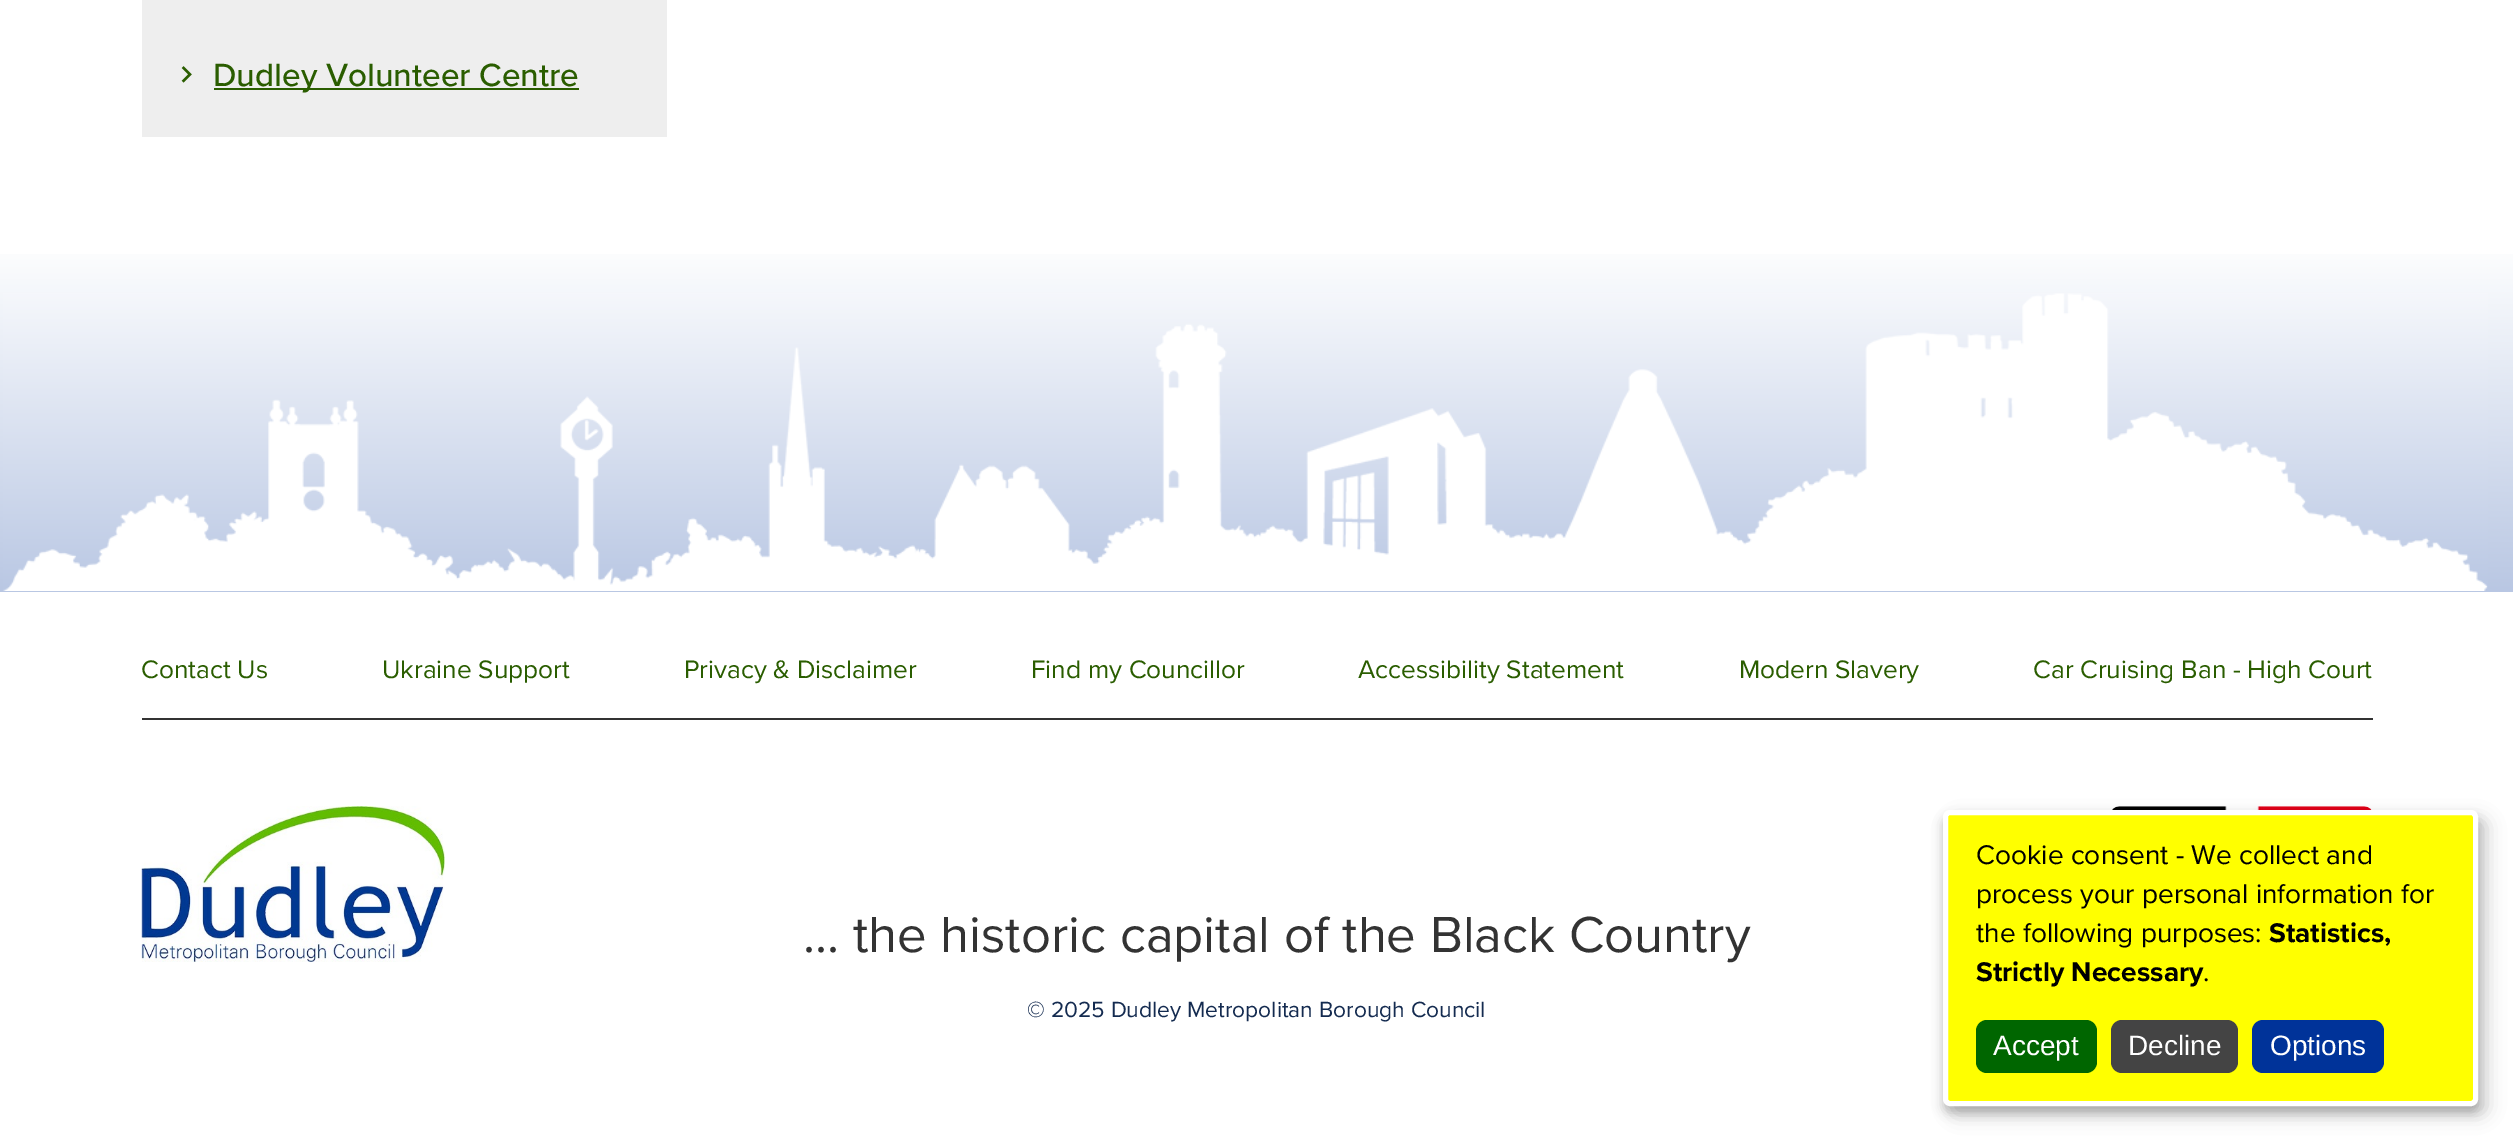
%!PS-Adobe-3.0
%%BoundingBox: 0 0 2513 1140
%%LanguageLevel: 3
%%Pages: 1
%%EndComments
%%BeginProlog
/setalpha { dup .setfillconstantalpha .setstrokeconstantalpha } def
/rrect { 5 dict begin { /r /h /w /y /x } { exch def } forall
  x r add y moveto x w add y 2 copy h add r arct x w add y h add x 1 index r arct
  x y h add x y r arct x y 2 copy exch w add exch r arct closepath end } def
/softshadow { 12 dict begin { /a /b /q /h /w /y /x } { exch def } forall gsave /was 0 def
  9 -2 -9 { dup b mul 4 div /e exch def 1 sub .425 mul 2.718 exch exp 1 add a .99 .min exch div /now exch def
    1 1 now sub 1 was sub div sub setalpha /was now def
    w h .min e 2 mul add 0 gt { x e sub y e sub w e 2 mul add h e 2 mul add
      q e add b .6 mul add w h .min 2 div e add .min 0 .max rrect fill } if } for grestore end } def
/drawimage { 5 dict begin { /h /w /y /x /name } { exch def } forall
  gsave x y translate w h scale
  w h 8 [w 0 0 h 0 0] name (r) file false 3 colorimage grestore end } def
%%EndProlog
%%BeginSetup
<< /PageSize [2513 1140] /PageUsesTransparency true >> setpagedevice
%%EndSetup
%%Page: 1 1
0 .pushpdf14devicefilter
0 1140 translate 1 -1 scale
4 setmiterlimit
1 setgray
0 0 2513 1140 rectfill
0.933 setgray
142 0 525 137 rectfill
(images/1.raw) 181 66 11 17 drawimage
0.165 0.365 0 setrgbcolor
214 88 365 2 rectfill
gsave newpath 0 254 moveto 2513 254 lineto 2513 592 lineto 0 592 lineto closepath clip newpath
<< /ShadingType 2 /ColorSpace /DeviceRGB /Coords [1257 241 1257 592] /Extend [true true] /Function << /FunctionType 2 /Domain [0 1] /C0 [1 1 1] /C1 [0.725 0.78 0.89] /N 1 >> >> shfill grestore
(images/2.raw) 3 293 2485 298 drawimage
0.2 setgray
142 718 2231 2 rectfill
(images/3.raw) 141 806 304 156 drawimage
(images/4.raw) 2112 806 260 4 drawimage
0 setgray
1951 819 536 296 7 9 0.19 softshadow
1943 817 535 296 7 5 0.2 softshadow
1 1 0 setrgbcolor
1945.5 812.5 530 291 4.5 rrect gsave fill grestore
1 setgray
5 setlinewidth
stroke
0 0.4 0 setrgbcolor
1976 1020 121 53 11 rrect fill
0.267 setgray
2111 1020 127 53 11 rrect fill
0 0.2 0.6 setrgbcolor
2252 1020 132 53 11 rrect fill
/ProximaNova-Medium [33.25 0 0 -33.25 0 0] selectfont
0.165 0.365 0 setrgbcolor
213 86 moveto (Dudley Volunteer Centre) show
/ProximaNova-Regular [26.25 0 0 -26.25 0 0] selectfont
141 678 moveto (Contact Us) show
382 678 moveto (Ukraine Support) show
684 678 moveto (Privacy & Disclaimer) show
1031 678 moveto (Find my Councillor) show
1358 678 moveto (Accessibility Statement) show
1739 678 moveto (Modern Slavery) show
2033 678 moveto (Car Cruising Ban - High Court) show
/ProximaNova-Regular [52.5 0 0 -52.5 0 0] selectfont
0.2 setgray
803 952 moveto (... the historic capital of the Black Country) show
/ProximaNova-Regular [22.75 0 0 -22.75 0 0] selectfont
0.078 0.169 0.314 setrgbcolor
1027 1017 moveto (© 2025 Dudley Metropolitan Borough Council) show
/ProximaNova-Regular [28 0 0 -28 0 0] selectfont
0 setgray
1976 864 moveto (Cookie consent - We collect and) show
1976 903 moveto (process your personal information for) show
1976 942 moveto (the following purposes:) show
/ProximaNova-Bold [28 0 0 -28 0 0] selectfont
2269 942 moveto (Statistics,) show
1976 981 moveto (Strictly Necessary) show
/ProximaNova-Regular [28 0 0 -28 0 0] selectfont
2203 981 moveto (.) show
/LiberationSans-Regular [28 0 0 -28 0 0] selectfont
1 setgray
1993 1055 moveto (Accept) show
2128 1055 moveto (Decline) show
2270 1055 moveto (Options) show
.poppdf14devicefilter showpage
%%EOF
